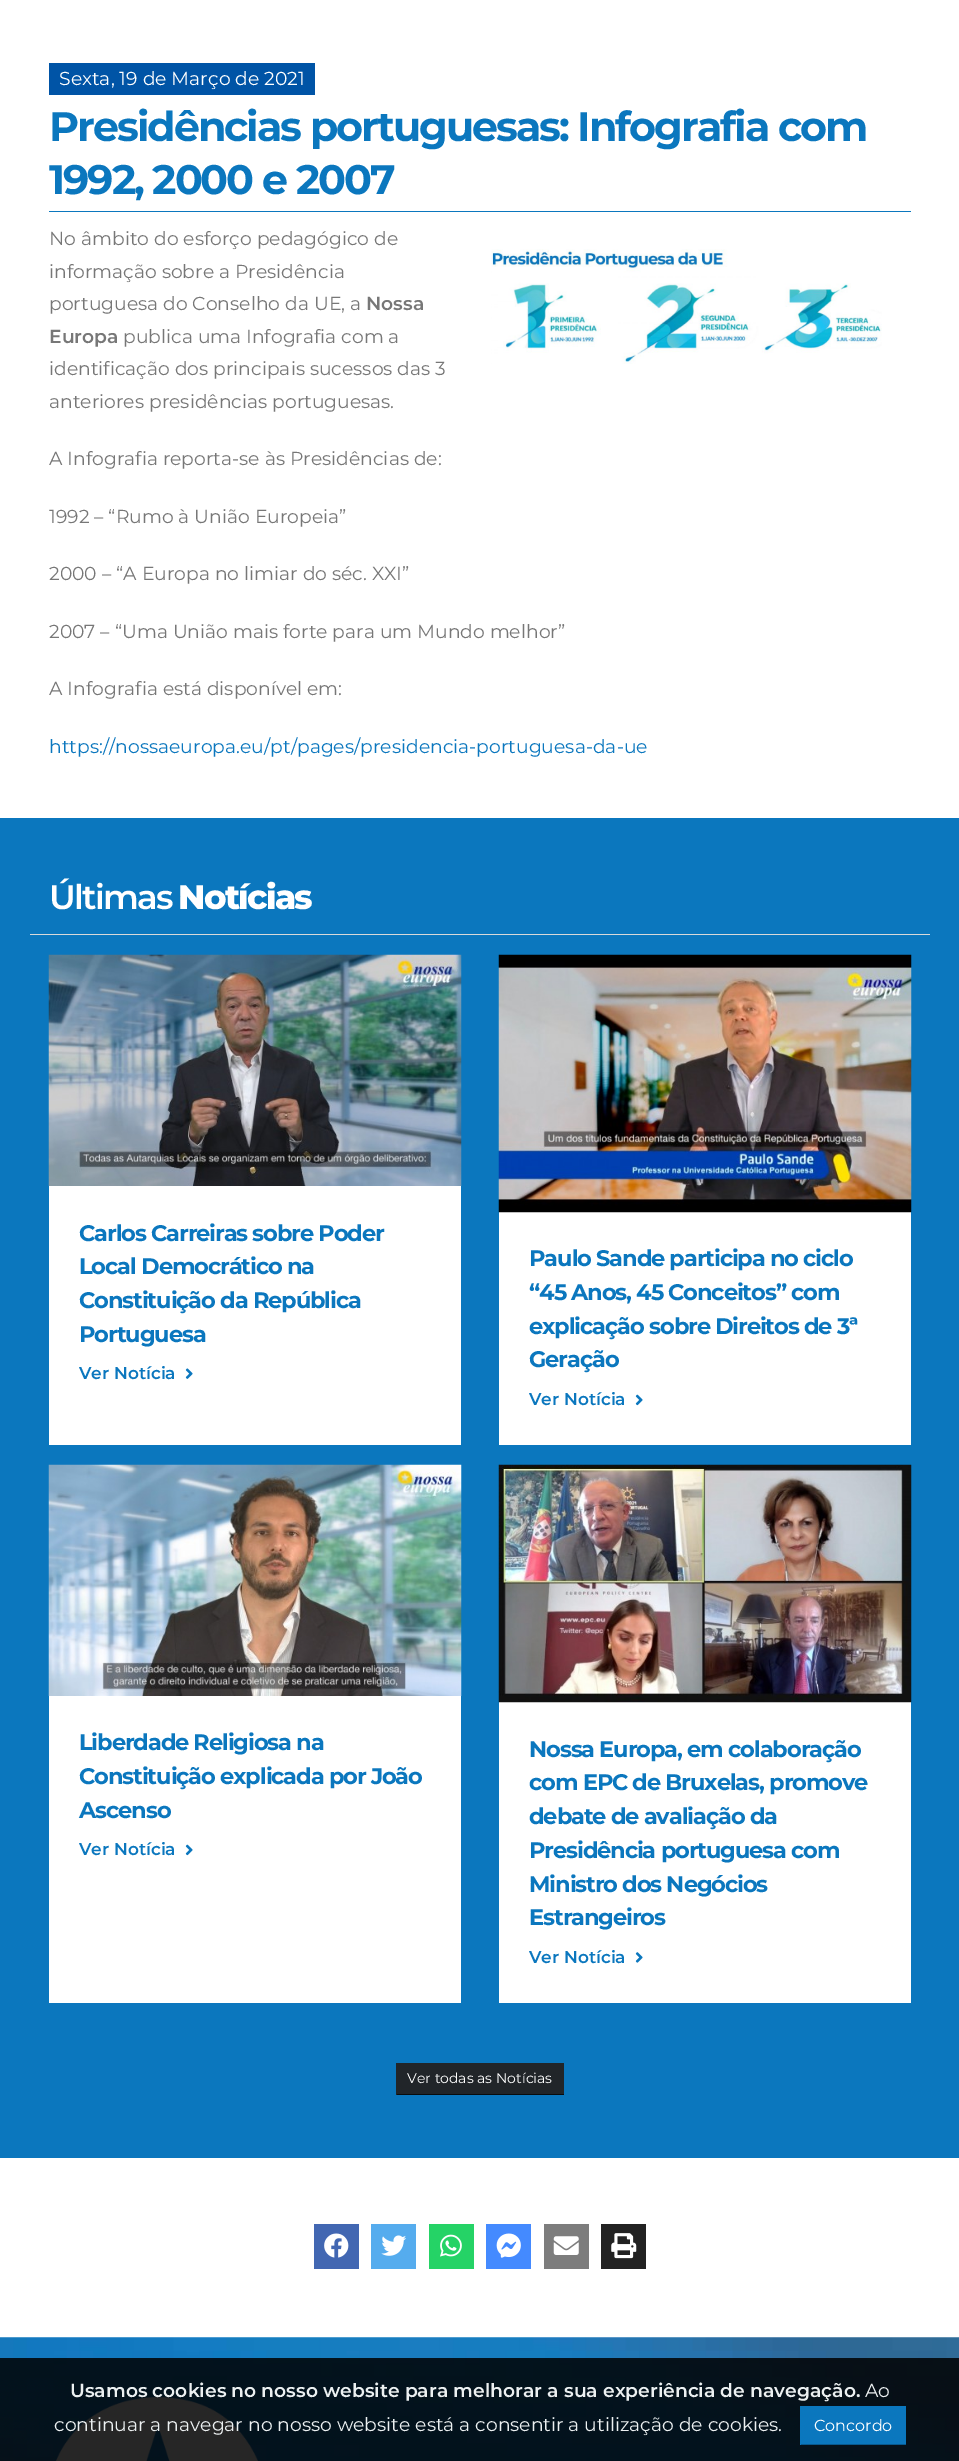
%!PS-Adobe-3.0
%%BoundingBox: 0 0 959 2461
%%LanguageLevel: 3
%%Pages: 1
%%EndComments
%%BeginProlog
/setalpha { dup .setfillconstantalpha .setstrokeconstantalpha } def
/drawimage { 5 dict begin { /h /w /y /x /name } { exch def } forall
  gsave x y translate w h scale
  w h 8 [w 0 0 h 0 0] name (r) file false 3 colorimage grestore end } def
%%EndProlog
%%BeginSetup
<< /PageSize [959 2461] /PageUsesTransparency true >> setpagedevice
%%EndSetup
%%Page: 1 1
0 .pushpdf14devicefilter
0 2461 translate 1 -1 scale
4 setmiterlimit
1 setgray
0 0 959 2461 rectfill
0 0.329 0.651 setrgbcolor
49 63 266 32 rectfill
0.043 0.467 0.745 setrgbcolor
49 211 862 1 rectfill
(images/1.raw) 491 249 391 115 drawimage
0 818 959 1340 rectfill
0.855 setgray
30 934 900 1 rectfill
1 setgray
49 1186 412 259 rectfill
(images/2.raw) 48 954 414 232 drawimage
(images/3.raw) 185 1368 8 11 drawimage
499 1212 412 233 rectfill
(images/4.raw) 498 954 414 259 drawimage
(images/5.raw) 635 1394 8 12 drawimage
49 1696 412 307 rectfill
(images/6.raw) 48 1464 414 232 drawimage
(images/5.raw) 185 1844 8 12 drawimage
499 1702 412 301 rectfill
(images/7.raw) 498 1464 414 239 drawimage
(images/8.raw) 635 1952 8 11 drawimage
0.129 0.145 0.161 setrgbcolor
397 2063 167 31 rectfill
0.039 0.047 0.051 setrgbcolor
396 2094 168 1 rectfill
0.129 0.145 0.161 setrgbcolor
396 2063 1 32 rectfill
0.259 0.404 0.698 setrgbcolor
314 2224 45 45 rectfill
(images/9.raw) 324 2233 25 25 drawimage
0.333 0.675 0.933 setrgbcolor
371 2224 45 45 rectfill
(images/10.raw) 381 2235 25 21 drawimage
0.145 0.827 0.4 setrgbcolor
429 2224 45 45 rectfill
(images/11.raw) 440 2234 22 23 drawimage
0.267 0.541 1 setrgbcolor
486 2224 45 45 rectfill
(images/12.raw) 496 2233 25 25 drawimage
0.49 setgray
544 2224 45 45 rectfill
(images/13.raw) 553 2236 26 19 drawimage
0.133 setgray
601 2224 45 45 rectfill
(images/14.raw) 611 2233 26 26 drawimage
(images/15.raw) 0 2337 959 124 drawimage
(images/16.raw) 55 2397 203 64 drawimage
0.85 setalpha
0 setgray
0 2358 959 103 rectfill
1 setalpha
0.043 0.467 0.745 setrgbcolor
801 2406 105 38 rectfill
0.031 0.349 0.557 setrgbcolor
800 2444 106 1 rectfill
0.043 0.467 0.745 setrgbcolor
800 2406 1 39 rectfill
/Montserrat-Regular [18.75 0 0 -18.75 0 0] selectfont
1 setgray
59 85 moveto (Sexta, 19 de Março de 2021) show
/Montserrat-Bold [41.25 0 0 -41.25 0 0] selectfont
0.043 0.467 0.745 setrgbcolor
49 141 moveto -2.05 0 (Presidências portuguesas: Infografia com) ashow
49 194 moveto -2.05 0 (1992, 2000 e 2007) ashow
/Montserrat-Regular [18.75 0 0 -18.75 0 0] selectfont
0.467 setgray
49 245 moveto (No âmbito do esforço pedagógico de) show
49 278 moveto (informação sobre a Presidência) show
49 310 moveto (portuguesa do Conselho da UE, a) show
/Montserrat-SemiBold [18.75 0 0 -18.75 0 0] selectfont
366 310 moveto (Nossa) show
49 343 moveto (Europa) show
/Montserrat-Regular [18.75 0 0 -18.75 0 0] selectfont
123 343 moveto (publica uma Infografia com a) show
49 375 moveto (identificação dos principais sucessos das 3) show
49 408 moveto (anteriores presidências portuguesas.) show
49 465 moveto (A Infografia reporta-se às Presidências de:) show
49 523 moveto (1992 – “Rumo à União Europeia”) show
49 580 moveto (2000 – “A Europa no limiar do séc. XXI”) show
49 638 moveto (2007 – “Uma União mais forte para um Mundo melhor”) show
49 695 moveto (A Infografia está disponível em:) show
0.043 0.467 0.745 setrgbcolor
49 753 moveto (https://nossaeuropa.eu/pt/pages/presidencia-portuguesa-da-ue) show
/Montserrat-SemiBold [34 0 0 -34 0 0] selectfont
1 setgray
49 909 moveto -1.75 0 (Últimas) ashow
/Montserrat-ExtraBold [34 0 0 -34 0 0] selectfont
178 909 moveto -1.75 0 (Notícias) ashow
/Montserrat-Bold [22.5 0 0 -22.5 0 0] selectfont
0.043 0.467 0.745 setrgbcolor
79 1241 moveto -1.1 0 (Carlos Carreiras sobre Poder) ashow
79 1274 moveto -1.1 0 (Local Democrático na) ashow
79 1308 moveto -1.1 0 (Constituição da República) ashow
79 1342 moveto -1.1 0 (Portuguesa) ashow
/Montserrat-SemiBold [17 0 0 -17 0 0] selectfont
79 1379 moveto (Ver Notícia) show
/Montserrat-Bold [22.5 0 0 -22.5 0 0] selectfont
529 1266 moveto -1.1 0 (Paulo Sande participa no ciclo) ashow
529 1300 moveto -1.1 0 (“45 Anos, 45 Conceitos” com) ashow
529 1334 moveto -1.1 0 (explicação sobre Direitos de 3ª) ashow
529 1367 moveto -1.1 0 (Geração) ashow
/Montserrat-SemiBold [17 0 0 -17 0 0] selectfont
529 1405 moveto (Ver Notícia) show
/Montserrat-Bold [22.5 0 0 -22.5 0 0] selectfont
79 1750 moveto -1.1 0 (Liberdade Religiosa na) ashow
79 1784 moveto -1.1 0 (Constituição explicada por João) ashow
79 1818 moveto -1.1 0 (Ascenso) ashow
/Montserrat-SemiBold [17 0 0 -17 0 0] selectfont
79 1855 moveto (Ver Notícia) show
/Montserrat-Bold [22.5 0 0 -22.5 0 0] selectfont
529 1757 moveto -1.1 0 (Nossa Europa, em colaboração) ashow
529 1790 moveto -1.1 0 (com EPC de Bruxelas, promove) ashow
529 1824 moveto -1.1 0 (debate de avaliação da) ashow
529 1858 moveto -1.1 0 (Presidência portuguesa com) ashow
529 1892 moveto -1.1 0 (Ministro dos Negócios) ashow
529 1925 moveto -1.1 0 (Estrangeiros) ashow
/Montserrat-SemiBold [17 0 0 -17 0 0] selectfont
529 1963 moveto (Ver Notícia) show
/Montserrat-Regular [14 0 0 -14 0 0] selectfont
1 setgray
407 2083 moveto (Ver todas as Notícias) show
/Montserrat-SemiBold [18.75 0 0 -18.75 0 0] selectfont
0.925 0.941 0.945 setrgbcolor
70 2397 moveto (Usamos cookies no nosso website para melhorar a sua experiência de navegação.) show
/Montserrat-Regular [18.75 0 0 -18.75 0 0] selectfont
865 2397 moveto (Ao) show
54 2431 moveto (continuar a navegar no nosso website está a consentir a utilização de cookies.) show
/Montserrat-Regular [16 0 0 -16 0 0] selectfont
1 setgray
814 2431 moveto (Concordo) show
.poppdf14devicefilter showpage
%%EOF
